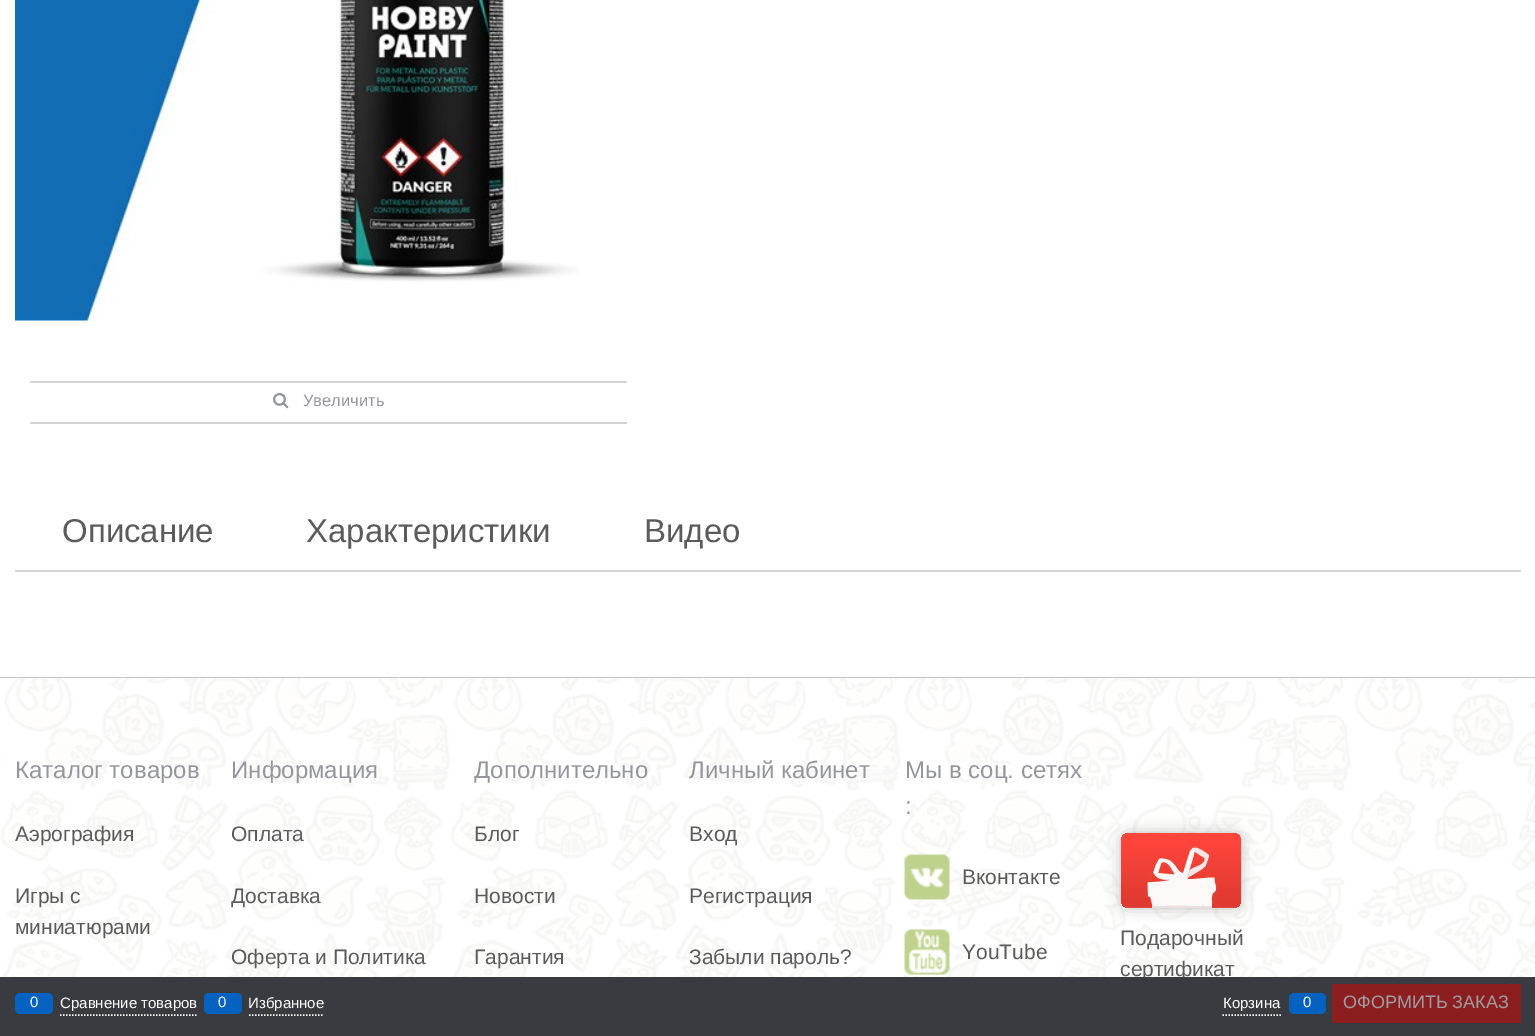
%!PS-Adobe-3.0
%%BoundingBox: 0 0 1535 1036
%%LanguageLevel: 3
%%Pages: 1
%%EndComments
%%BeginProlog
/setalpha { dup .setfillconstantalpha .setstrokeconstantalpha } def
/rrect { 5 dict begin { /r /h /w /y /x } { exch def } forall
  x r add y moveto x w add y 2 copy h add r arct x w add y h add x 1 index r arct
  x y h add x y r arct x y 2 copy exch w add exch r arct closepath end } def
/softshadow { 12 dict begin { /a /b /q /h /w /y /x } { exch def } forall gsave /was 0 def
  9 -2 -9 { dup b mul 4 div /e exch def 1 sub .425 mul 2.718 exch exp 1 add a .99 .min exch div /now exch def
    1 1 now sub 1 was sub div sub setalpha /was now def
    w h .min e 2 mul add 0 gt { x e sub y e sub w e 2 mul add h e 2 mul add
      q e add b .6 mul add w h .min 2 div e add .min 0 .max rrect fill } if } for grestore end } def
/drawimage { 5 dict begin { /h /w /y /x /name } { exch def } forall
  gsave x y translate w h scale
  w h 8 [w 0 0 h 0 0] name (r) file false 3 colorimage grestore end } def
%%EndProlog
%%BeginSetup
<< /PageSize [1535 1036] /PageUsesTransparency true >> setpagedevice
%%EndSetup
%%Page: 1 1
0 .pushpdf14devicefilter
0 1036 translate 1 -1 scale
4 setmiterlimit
1 setgray
0 0 1535 1036 rectfill
(images/1.raw) 0 678 1535 299 drawimage
0.769 setgray
0 677 1535 1 rectfill
(images/2.raw) 15 0 564 321 drawimage
0.835 setgray
30 381 597 2 rectfill
30 422 597 2 rectfill
(images/3.raw) 273 392 16 17 drawimage
15 570 1506 2 rectfill
(images/4.raw) 904 854 46 46 drawimage
(images/5.raw) 904 929 46 46 drawimage
0 setgray
1121 833 120 75 8 7 0.25 softshadow
gsave 1121 833 120 75 8 rrect clip newpath
<< /ShadingType 2 /ColorSpace /DeviceRGB /Coords [1181 833 1181 908] /Extend [true true] /Function << /FunctionType 3 /Domain [0 1] /Functions [<< /FunctionType 2 /Domain [0 1] /C0 [1 0.271 0.235] /C1 [0.996 0.267 0.231] /N 1 >> << /FunctionType 2 /Domain [0 1] /C0 [0.996 0.267 0.231] /C1 [0.906 0.243 0.2] /N 1 >> << /FunctionType 2 /Domain [0 1] /C0 [0.906 0.243 0.2] /C1 [0.875 0.227 0.192] /N 1 >> << /FunctionType 2 /Domain [0 1] /C0 [0.875 0.227 0.192] /C1 [0.886 0.29 0.255] /N 1 >>] /Bounds [0.12 0.67 0.98] /Encode [0 1 0 1 0 1 0 1] >> >> shfill grestore
(images/6.raw) 1147 847 70 61 drawimage
/LiberationSans-Regular [16.5 0 0 -16.5 0 0] selectfont
0.58 0.588 0.608 setrgbcolor
303 406 moveto (Увеличить) show
/LiberationSans-Regular [33 0 0 -33 0 0] selectfont
0.357 setgray
62 542 moveto (Описание) show
306 542 moveto (Характеристики) show
644 542 moveto (Видео) show
/LiberationSans-Regular [24 0 0 -24 0 0] selectfont
0.58 0.588 0.608 setrgbcolor
15 778 moveto (Каталог товаров) show
/LiberationSans-Regular [21 0 0 -21 0 0] selectfont
0.357 setgray
15 841 moveto (Аэрография) show
15 903 moveto (Игры с) show
15 934 moveto (миниатюрами) show
/LiberationSans-Regular [24 0 0 -24 0 0] selectfont
0.58 0.588 0.608 setrgbcolor
231 778 moveto (Информация) show
/LiberationSans-Regular [21 0 0 -21 0 0] selectfont
0.357 setgray
231 841 moveto (Оплата) show
231 903 moveto (Доставка) show
231 964 moveto (Оферта и Политика) show
/LiberationSans-Regular [24 0 0 -24 0 0] selectfont
0.58 0.588 0.608 setrgbcolor
474 778 moveto (Дополнительно) show
/LiberationSans-Regular [21 0 0 -21 0 0] selectfont
0.357 setgray
474 841 moveto (Блог) show
474 903 moveto (Новости) show
474 964 moveto (Гарантия) show
/LiberationSans-Regular [24 0 0 -24 0 0] selectfont
0.58 0.588 0.608 setrgbcolor
689 778 moveto (Личный кабинет) show
/LiberationSans-Regular [21 0 0 -21 0 0] selectfont
0.357 setgray
689 841 moveto (Вход) show
689 903 moveto (Регистрация) show
689 964 moveto (Забыли пароль?) show
/LiberationSans-Regular [24 0 0 -24 0 0] selectfont
0.58 0.588 0.608 setrgbcolor
905 778 moveto (Мы в соц. сетях) show
905 814 moveto (:) show
/LiberationSans-Regular [21 0 0 -21 0 0] selectfont
0.357 setgray
962 884 moveto (Вконтакте) show
962 959 moveto (YouTube) show
1120 945 moveto (Подарочный) show
1120 976 moveto (сертификат) show
0.22 0.235 0.251 setrgbcolor
0 977 1535 59 rectfill
1 setgray
1.5 setlinewidth
[1.5 1.5] 0 setdash
newpath 60 1015 moveto 198 1015 lineto stroke
0.024 0.384 0.757 setrgbcolor
15 993 38 21 5 rrect fill
/LiberationSans-Regular [15 0 0 -15 0 0] selectfont
1 setgray
30 1007 moveto (0) show
60 1008 moveto (Сравнение товаров) show
newpath 249 1015 moveto 324 1015 lineto stroke
0.024 0.384 0.757 setrgbcolor
204 993 38 21 5 rrect fill
1 setgray
218 1007 moveto (0) show
248 1008 moveto (Избранное) show
newpath 1222.5 1015 moveto 1281 1015 lineto stroke
1223 1008 moveto (Корзина) show
0.024 0.384 0.757 setrgbcolor
1289 993 37 21 5 rrect fill
1 setgray
1303 1007 moveto (0) show
0.553 0.118 0.125 setrgbcolor
1332 984 189 39 rectfill
/LiberationSans-Regular [18 0 0 -18 0 0] selectfont
0.612 0.62 0.627 setrgbcolor
1343 1008 moveto (ОФОРМИТЬ ЗАКАЗ) show
.poppdf14devicefilter showpage
%%EOF
